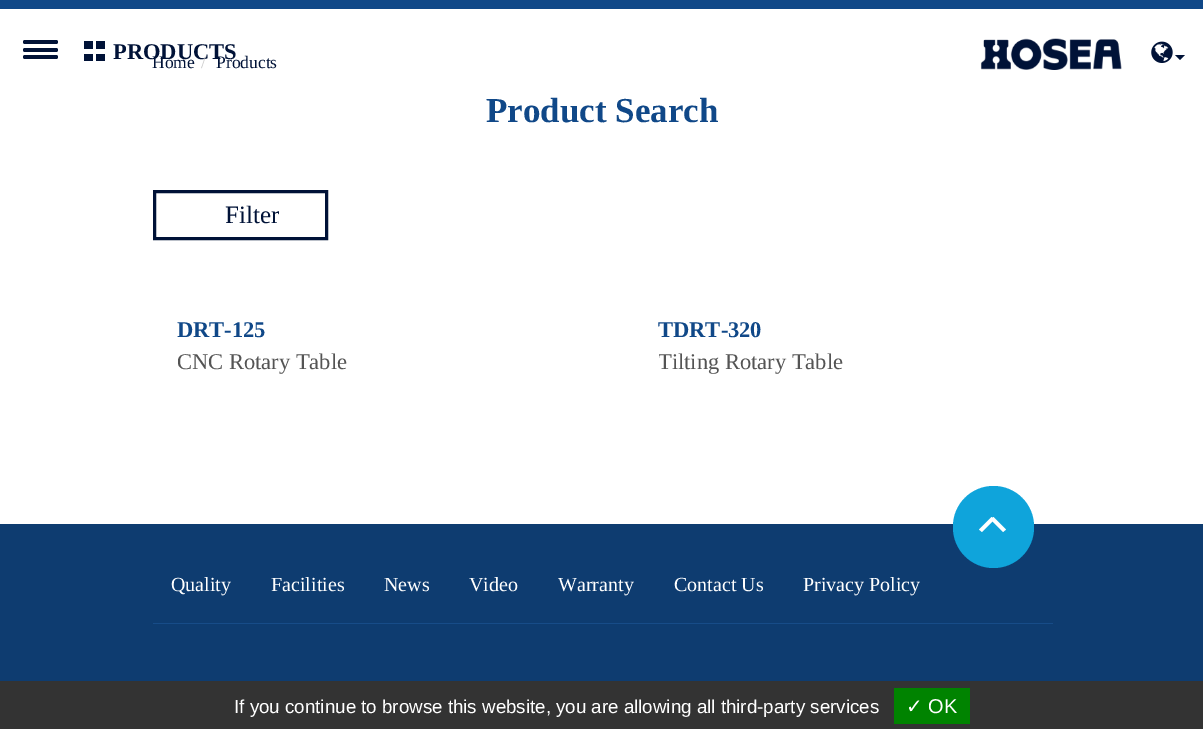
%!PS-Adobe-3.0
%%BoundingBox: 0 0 1203 729
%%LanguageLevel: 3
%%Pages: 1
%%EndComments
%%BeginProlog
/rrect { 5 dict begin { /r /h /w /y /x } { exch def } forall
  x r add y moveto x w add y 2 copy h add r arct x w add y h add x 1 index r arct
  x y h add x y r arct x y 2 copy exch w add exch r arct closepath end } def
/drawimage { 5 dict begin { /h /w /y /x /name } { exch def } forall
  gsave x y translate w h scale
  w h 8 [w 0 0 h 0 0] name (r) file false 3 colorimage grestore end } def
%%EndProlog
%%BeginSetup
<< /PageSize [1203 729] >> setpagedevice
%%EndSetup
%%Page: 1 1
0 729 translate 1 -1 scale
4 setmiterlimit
1 setgray
0 0 1203 729 rectfill
0.063 0.282 0.533 setrgbcolor
0 0 1203 9 rectfill
0 0.071 0.216 setrgbcolor
23 40 35 4 2 rrect fill
23 48 35 4 2 rrect fill
23 55 35 4 2 rrect fill
84 41 9 8 rectfill
96 41 9 8 rectfill
84 54 9 7 rectfill
96 54 9 7 rectfill
(images/1.raw) 980 38 142 32 drawimage
(images/2.raw) 1151 41 22 22 drawimage
newpath 1175 55 moveto 1185 55 lineto 1180 60 lineto closepath fill
3 setlinewidth
154.5 191.5 172 47 rectstroke
0.055 0.235 0.439 setrgbcolor
0 524 1203 157 rectfill
0.059 0.643 0.859 setrgbcolor
953 486 81 82 40.5 rrect fill
1 setgray
newpath 979 529.5 moveto 991.5 517 lineto 994.5 519.5 lineto 982 532 lineto closepath fill
newpath 990.5 519.5 moveto 993.5 517 lineto 1006 529.5 lineto 1003 532 lineto closepath fill
0.09 0.298 0.533 setrgbcolor
153 623 900 1 rectfill
0.2 setgray
0 681 1203 48 rectfill
0 0.514 0 setrgbcolor
894 688 76 36 rectfill
/LiberationSerif-Bold [22.5 0 0 -22.5 0 0] selectfont
0 0.071 0.216 setrgbcolor
113 59 moveto (PRODUCTS) show
/LiberationSerif-Regular [17.5 0 0 -17.5 0 0] selectfont
152 68 moveto (Home) show
0.8 setgray
201 68 moveto (/) show
0 0.071 0.216 setrgbcolor
216 68 moveto (Products) show
/LiberationSerif-Bold [35 0 0 -35 0 0] selectfont
0.063 0.282 0.533 setrgbcolor
486 122 moveto (Product Search) show
/LiberationSerif-Regular [25 0 0 -25 0 0] selectfont
0 0.071 0.216 setrgbcolor
225 223 moveto (Filter) show
/LiberationSerif-Bold [22.5 0 0 -22.5 0 0] selectfont
0.063 0.282 0.533 setrgbcolor
177 337 moveto (DRT-125) show
gsave
178 346 368 33 rectclip
/LiberationSerif-Regular [22.5 0 0 -22.5 0 0] selectfont
0.329 setgray
177 369 moveto (CNC Rotary Table) show
grestore
658 337 moveto (TDRT-320) show
gsave
659 346 369 33 rectclip
/LiberationSerif-Regular [22.5 0 0 -22.5 0 0] selectfont
0.329 setgray
658 369 moveto (Tilting Rotary Table) show
grestore
/LiberationSerif-Regular [20 0 0 -20 0 0] selectfont
1 setgray
171 591 moveto (Quality) show
271 591 moveto (Facilities) show
384 591 moveto (News) show
469 591 moveto (Video) show
558 591 moveto (Warranty) show
674 591 moveto (Contact Us) show
803 591 moveto (Privacy Policy) show
/LiberationSans-Regular [18.75 0 0 -18.75 0 0] selectfont
234 713 moveto (If you continue to browse this website, you are allowing all third-party services) show
/DejaVuSans-Regular [20 0 0 -20 0 0] selectfont
906 713 moveto (✓) show
/LiberationSans-Regular [20 0 0 -20 0 0] selectfont
928 713 moveto (OK) show
showpage
%%EOF
